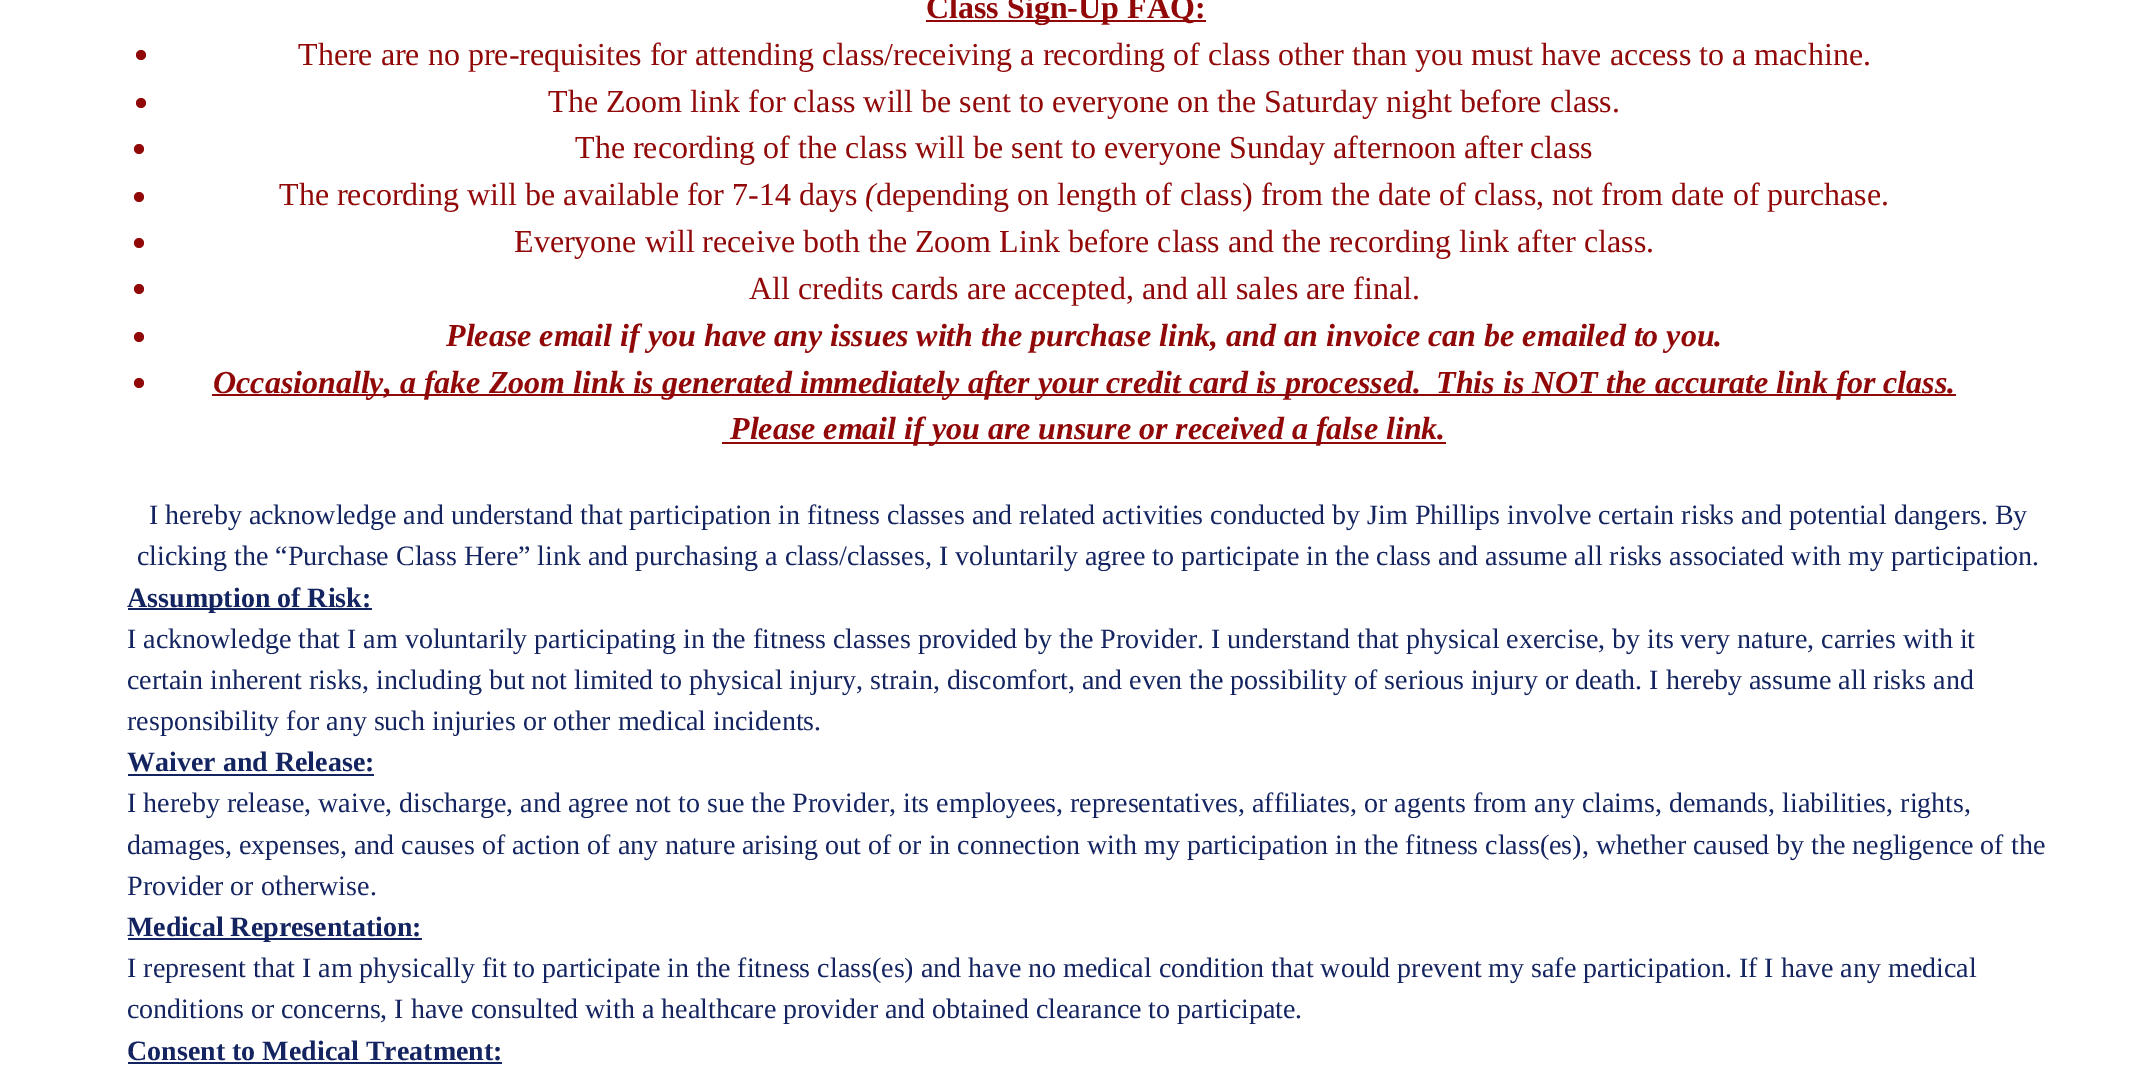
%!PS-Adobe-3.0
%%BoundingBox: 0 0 2138 1090
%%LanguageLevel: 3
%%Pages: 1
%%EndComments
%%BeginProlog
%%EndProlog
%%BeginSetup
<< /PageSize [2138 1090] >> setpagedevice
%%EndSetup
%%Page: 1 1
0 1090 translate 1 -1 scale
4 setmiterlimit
1 setgray
0 0 2138 1090 rectfill
0.569 0.031 0.031 setrgbcolor
926 20 280 2 rectfill
newpath 141 55 5 0 360 arc closepath fill
newpath 141 103 5 0 360 arc closepath fill
newpath 139 149 5 0 360 arc closepath fill
newpath 139 197 5 0 360 arc closepath fill
newpath 139 243 5 0 360 arc closepath fill
newpath 139 289 5 0 360 arc closepath fill
newpath 139 337 5 0 360 arc closepath fill
newpath 139 383 5 0 360 arc closepath fill
212 394 1744 2 rectfill
722 442 724 2 rectfill
0.075 0.141 0.376 setrgbcolor
128 608 244 2 rectfill
128 774 246 2 rectfill
128 938 294 2 rectfill
128 1062 374 2 rectfill
/LiberationSerif-Bold [32 0 0 -32 0 0] selectfont
0.569 0.031 0.031 setrgbcolor
926 18 moveto (Class Sign-Up FAQ:) show
/LiberationSerif-Regular [32 0 0 -32 0 0] selectfont
298 65 moveto (There are no pre-requisites for attending class/receiving a recording of class other than you must have access to a machine.) show
548 112 moveto (The Zoom link for class will be sent to everyone on the Saturday night before class.) show
575 158 moveto (The recording of the class will be sent to everyone Sunday afternoon after class) show
279 205 moveto (The recording will be available for 7-14 days) show
/LiberationSerif-Italic [32 0 0 -32 0 0] selectfont
865 205 moveto (\() show
/LiberationSerif-Regular [32 0 0 -32 0 0] selectfont
876 205 moveto (depending on length of class\) from the date of class, not from date of purchase.) show
514 252 moveto (Everyone will receive both the Zoom Link before class and the recording link after class.) show
749 299 moveto (All credits cards are accepted, and all sales are final.) show
/LiberationSerif-BoldItalic [32 0 0 -32 0 0] selectfont
446 346 moveto (Please email if you have any issues with the purchase link, and an invoice can be emailed to you.) show
213 393 moveto (Occasionally, a fake Zoom link is generated immediately after your credit card is processed.) show
1436 393 moveto (This is NOT the accurate link for class.) show
730 439 moveto (Please email if you are unsure or received a false link.) show
/LiberationSerif-Regular [28 0 0 -28 0 0] selectfont
0.075 0.141 0.376 setrgbcolor
149 524 moveto (I hereby acknowledge and understand that participation in fitness classes and related activities conducted by Jim Phillips involve certain risks and potential dangers. By) show
137 565 moveto (clicking the “Purchase Class Here” link and purchasing a class/classes, I voluntarily agree to participate in the class and assume all risks associated with my participation.) show
/LiberationSerif-Bold [28 0 0 -28 0 0] selectfont
127 607 moveto (Assumption of Risk:) show
/LiberationSerif-Regular [28 0 0 -28 0 0] selectfont
127 648 moveto (I acknowledge that I am voluntarily participating in the fitness classes provided by the Provider. I understand that physical exercise, by its very nature, carries with it) show
127 689 moveto (certain inherent risks, including but not limited to physical injury, strain, discomfort, and even the possibility of serious injury or death. I hereby assume all risks and) show
127 730 moveto (responsibility for any such injuries or other medical incidents.) show
/LiberationSerif-Bold [28 0 0 -28 0 0] selectfont
127 771 moveto (Waiver and Release:) show
/LiberationSerif-Regular [28 0 0 -28 0 0] selectfont
127 812 moveto (I hereby release, waive, discharge, and agree not to sue the Provider, its employees, representatives, affiliates, or agents from any claims, demands, liabilities, rights,) show
127 854 moveto (damages, expenses, and causes of action of any nature arising out of or in connection with my participation in the fitness class\(es\), whether caused by the negligence of the) show
127 895 moveto (Provider or otherwise.) show
/LiberationSerif-Bold [28 0 0 -28 0 0] selectfont
127 936 moveto (Medical Representation:) show
/LiberationSerif-Regular [28 0 0 -28 0 0] selectfont
127 977 moveto (I represent that I am physically fit to participate in the fitness class\(es\) and have no medical condition that would prevent my safe participation. If I have any medical) show
127 1018 moveto (conditions or concerns, I have consulted with a healthcare provider and obtained clearance to participate.) show
/LiberationSerif-Bold [28 0 0 -28 0 0] selectfont
127 1060 moveto (Consent to Medical Treatment:) show
showpage
%%EOF
